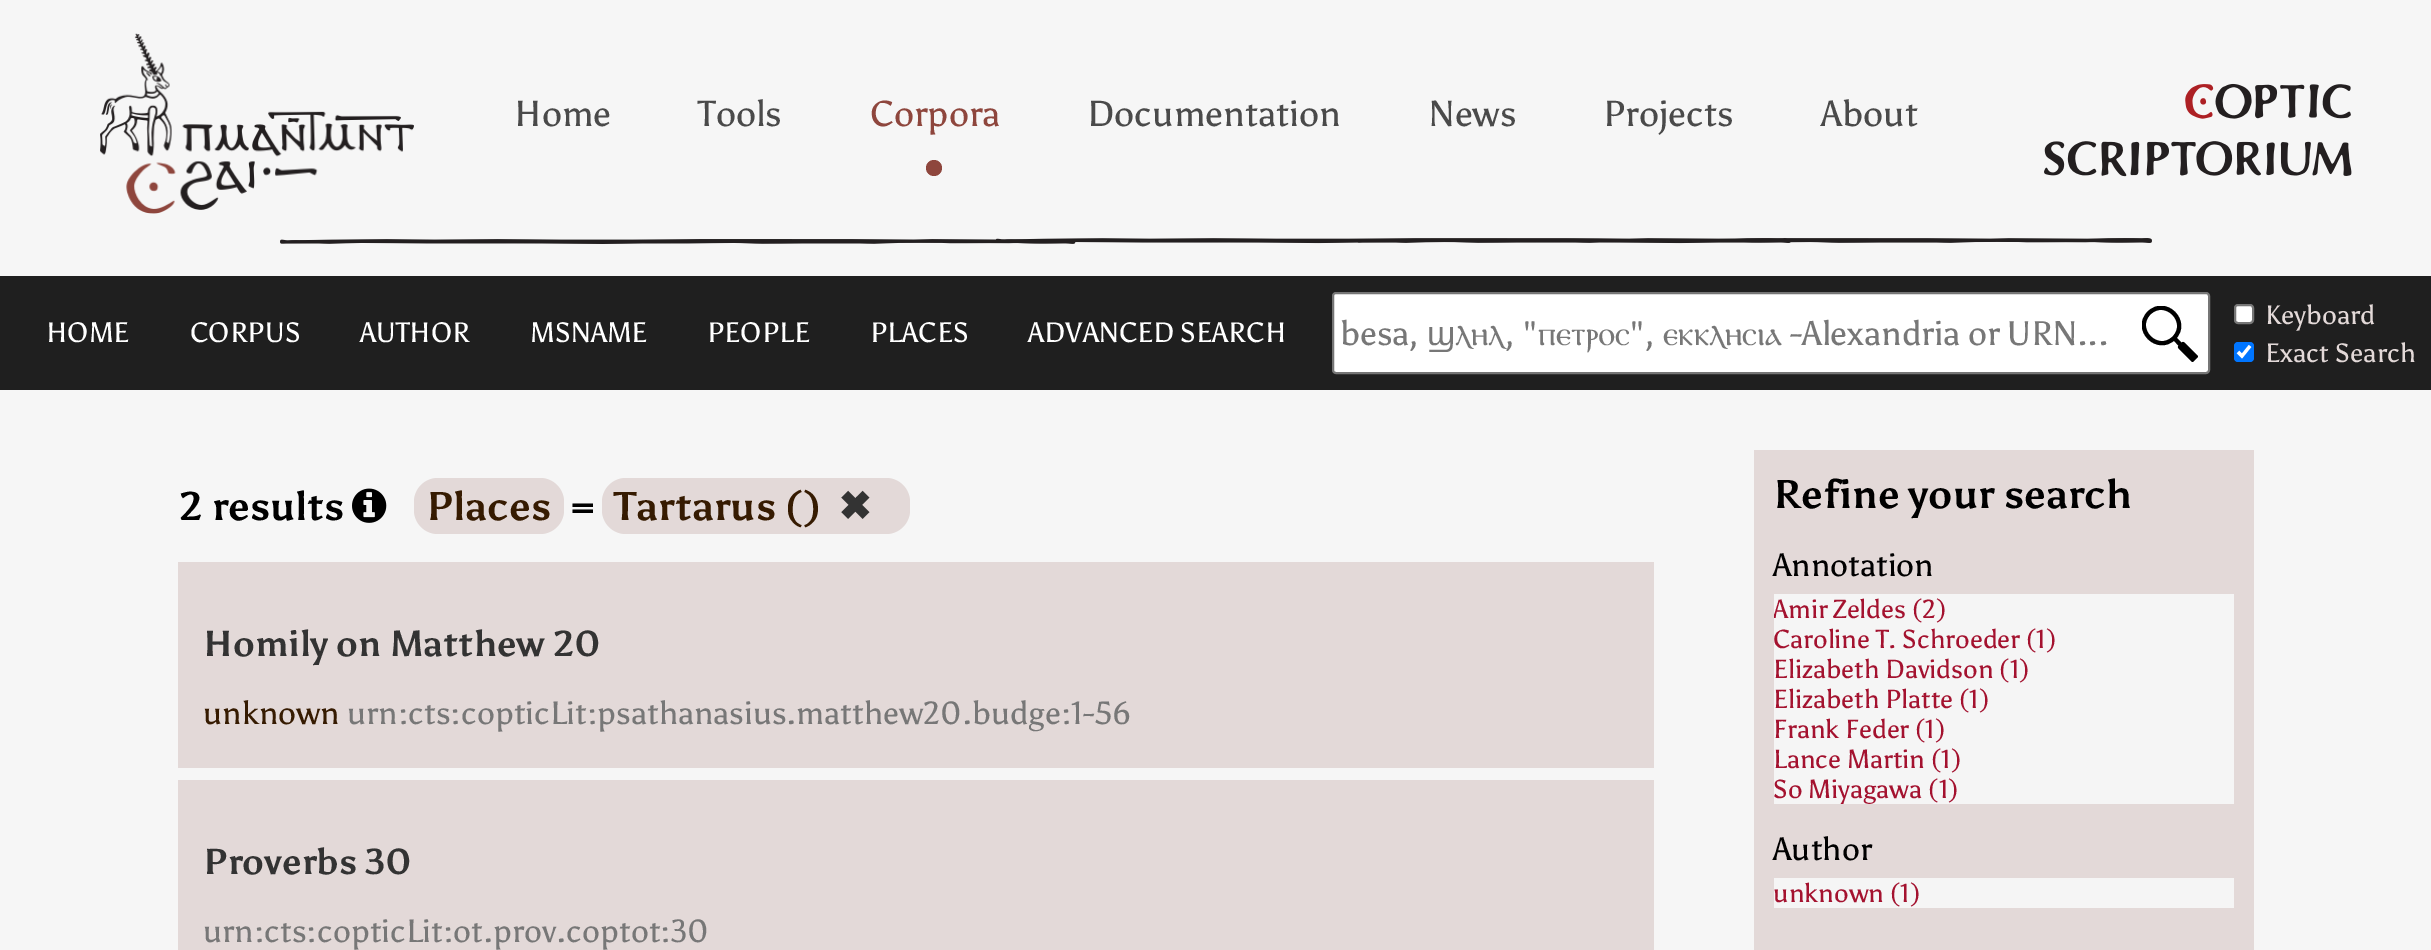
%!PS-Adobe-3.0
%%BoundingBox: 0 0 2431 950
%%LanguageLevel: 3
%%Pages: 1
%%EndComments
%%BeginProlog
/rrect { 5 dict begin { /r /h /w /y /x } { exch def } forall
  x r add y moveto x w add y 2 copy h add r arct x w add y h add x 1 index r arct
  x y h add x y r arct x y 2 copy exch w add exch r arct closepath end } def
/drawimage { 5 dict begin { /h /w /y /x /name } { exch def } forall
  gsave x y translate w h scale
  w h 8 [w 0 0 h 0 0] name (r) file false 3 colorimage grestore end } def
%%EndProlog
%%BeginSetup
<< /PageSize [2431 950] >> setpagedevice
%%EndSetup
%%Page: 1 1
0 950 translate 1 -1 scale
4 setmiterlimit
0.965 setgray
0 0 2431 950 rectfill
(images/1.raw) 280 238 1872 6 drawimage
(images/2.raw) 100 33 314 181 drawimage
0.557 0.275 0.239 setrgbcolor
newpath 934 168 8 0 360 arc closepath fill
(images/3.raw) 2044 83 308 94 drawimage
0.122 setgray
0 276 2431 114 rectfill
1 setgray
1333 293 876 80 3 rrect gsave fill grestore
0.463 setgray
2 setlinewidth
stroke
gsave
2142 306 56 56 rectclip
0 setgray
4.1 setlinewidth
1 setlinecap
newpath 2174 338 moveto 2190 321.5 2165.5 297 2149 313 curveto 2133 329.5 2157.5 354 2174 338 curveto 2193 357.5 lineto 2183 344 moveto 2195.5 356.5 lineto 2192.5 359.5 lineto 2180 347 lineto stroke
grestore
1 setgray
2235 305 18 18 3 rrect gsave fill grestore
0.463 setgray
stroke
0 0.459 1 setrgbcolor
2234 342 20 20 4 rrect fill
1 setgray
3.2 setlinewidth
newpath 2238 352 moveto 2242 356 lineto 2250 346 lineto stroke
(images/4.raw) 352 488 35 35 drawimage
0.89 0.851 0.847 setrgbcolor
414 478 150 56 24 rrect fill
602 478 308 56 24 rrect fill
178 562 1476 206 rectfill
178 780 1476 170 rectfill
1754 450 500 500 rectfill
0.961 setgray
1774 594 460 210 rectfill
1774 878 460 30 rectfill
/Asul-Regular [36 0 0 -36 0 0] selectfont
0.29 setgray
514 126 moveto (Home) show
698 126 moveto (Tools) show
0.557 0.275 0.239 setrgbcolor
870 126 moveto (Corpora) show
0.29 setgray
1087 126 moveto (Documentation) show
1429 126 moveto (News) show
1603 126 moveto (Projects) show
1821 126 moveto (About) show
/Asul-Regular [28 0 0 -28 0 0] selectfont
1 setgray
46 342 moveto (HOME) show
190 342 moveto (CORPUS) show
360 342 moveto (AUTHOR) show
530 342 moveto (MSNAME) show
707 342 moveto (PEOPLE) show
870 342 moveto (PLACES) show
1028 342 moveto (ADVANCED SEARCH) show
/Asul-Regular [34 0 0 -34 0 0] selectfont
0.467 setgray
1340 345 moveto (besa,) show
/LiberationSans-Regular [34 0 0 -34 0 0] selectfont
1427 345 moveto (ϣ) show
/FreeSerif-Regular [34 0 0 -34 0 0] selectfont
1455 345 moveto (ⲗⲏⲗ) show
/Asul-Regular [34 0 0 -34 0 0] selectfont
1505 345 moveto (, ") show
/FreeSerif-Regular [34 0 0 -34 0 0] selectfont
1538 345 moveto (ⲡⲉⲧⲣⲟⲥ) show
/Asul-Regular [34 0 0 -34 0 0] selectfont
1629 345 moveto (",) show
/FreeSerif-Regular [34 0 0 -34 0 0] selectfont
1663 345 moveto (ⲉⲕⲕⲗⲏⲥⲓⲁ) show
/Asul-Regular [34 0 0 -34 0 0] selectfont
1790 345 moveto (-Alexandria or URN...) show
/Asul-Regular [26.5 0 0 -26.5 0 0] selectfont
0.89 0.851 0.847 setrgbcolor
2265 324 moveto (Keyboard) show
2265 362 moveto (Exact Search) show
/Asul-Bold [40 0 0 -40 0 0] selectfont
0 setgray
179 520 moveto (2 results) show
0.212 0.106 0.004 setrgbcolor
426 520 moveto (Places) show
0 setgray
572 520 moveto (=) show
0.212 0.106 0.004 setrgbcolor
614 520 moveto (Tartarus \(\)) show
/DejaVuSans-Bold [40 0 0 -40 0 0] selectfont
0.2 setgray
838 520 moveto (✖) show
/Asul-Bold [36 0 0 -36 0 0] selectfont
203 656 moveto (Homily on Matthew 20) show
/Asul-Regular [32 0 0 -32 0 0] selectfont
0.212 0.106 0.004 setrgbcolor
203 724 moveto (unknown) show
0.467 setgray
347 724 moveto (urn:cts:copticLit:psathanasius.matthew20.budge:1-56) show
/Asul-Bold [36 0 0 -36 0 0] selectfont
0.2 setgray
203 874 moveto (Proverbs 30) show
/Asul-Regular [32 0 0 -32 0 0] selectfont
0.467 setgray
203 942 moveto (urn:cts:copticLit:ot.prov.coptot:30) show
/Asul-Bold [40 0 0 -40 0 0] selectfont
0 setgray
1773 508 moveto (Refine your search) show
/Asul-Regular [32 0 0 -32 0 0] selectfont
1773 576 moveto (Annotation) show
gsave
1774 594 460 210 rectclip
/Asul-Regular [26 0 0 -26 0 0] selectfont
0.643 0.071 0.184 setrgbcolor
1773 618 moveto (Amir Zeldes \(2\)) show
grestore
/Asul-Regular [26 0 0 -26 0 0] selectfont
0.643 0.071 0.184 setrgbcolor
1773 648 moveto (Caroline T. Schroeder \(1\)) show
1773 678 moveto (Elizabeth Davidson \(1\)) show
1773 708 moveto (Elizabeth Platte \(1\)) show
1773 738 moveto (Frank Feder \(1\)) show
1773 768 moveto (Lance Martin \(1\)) show
gsave
1774 594 460 210 rectclip
1773 798 moveto (So Miyagawa \(1\)) show
grestore
/Asul-Regular [32 0 0 -32 0 0] selectfont
0 setgray
1773 860 moveto (Author) show
/Asul-Regular [26 0 0 -26 0 0] selectfont
0.643 0.071 0.184 setrgbcolor
1773 902 moveto (unknown \(1\)) show
showpage
%%EOF
